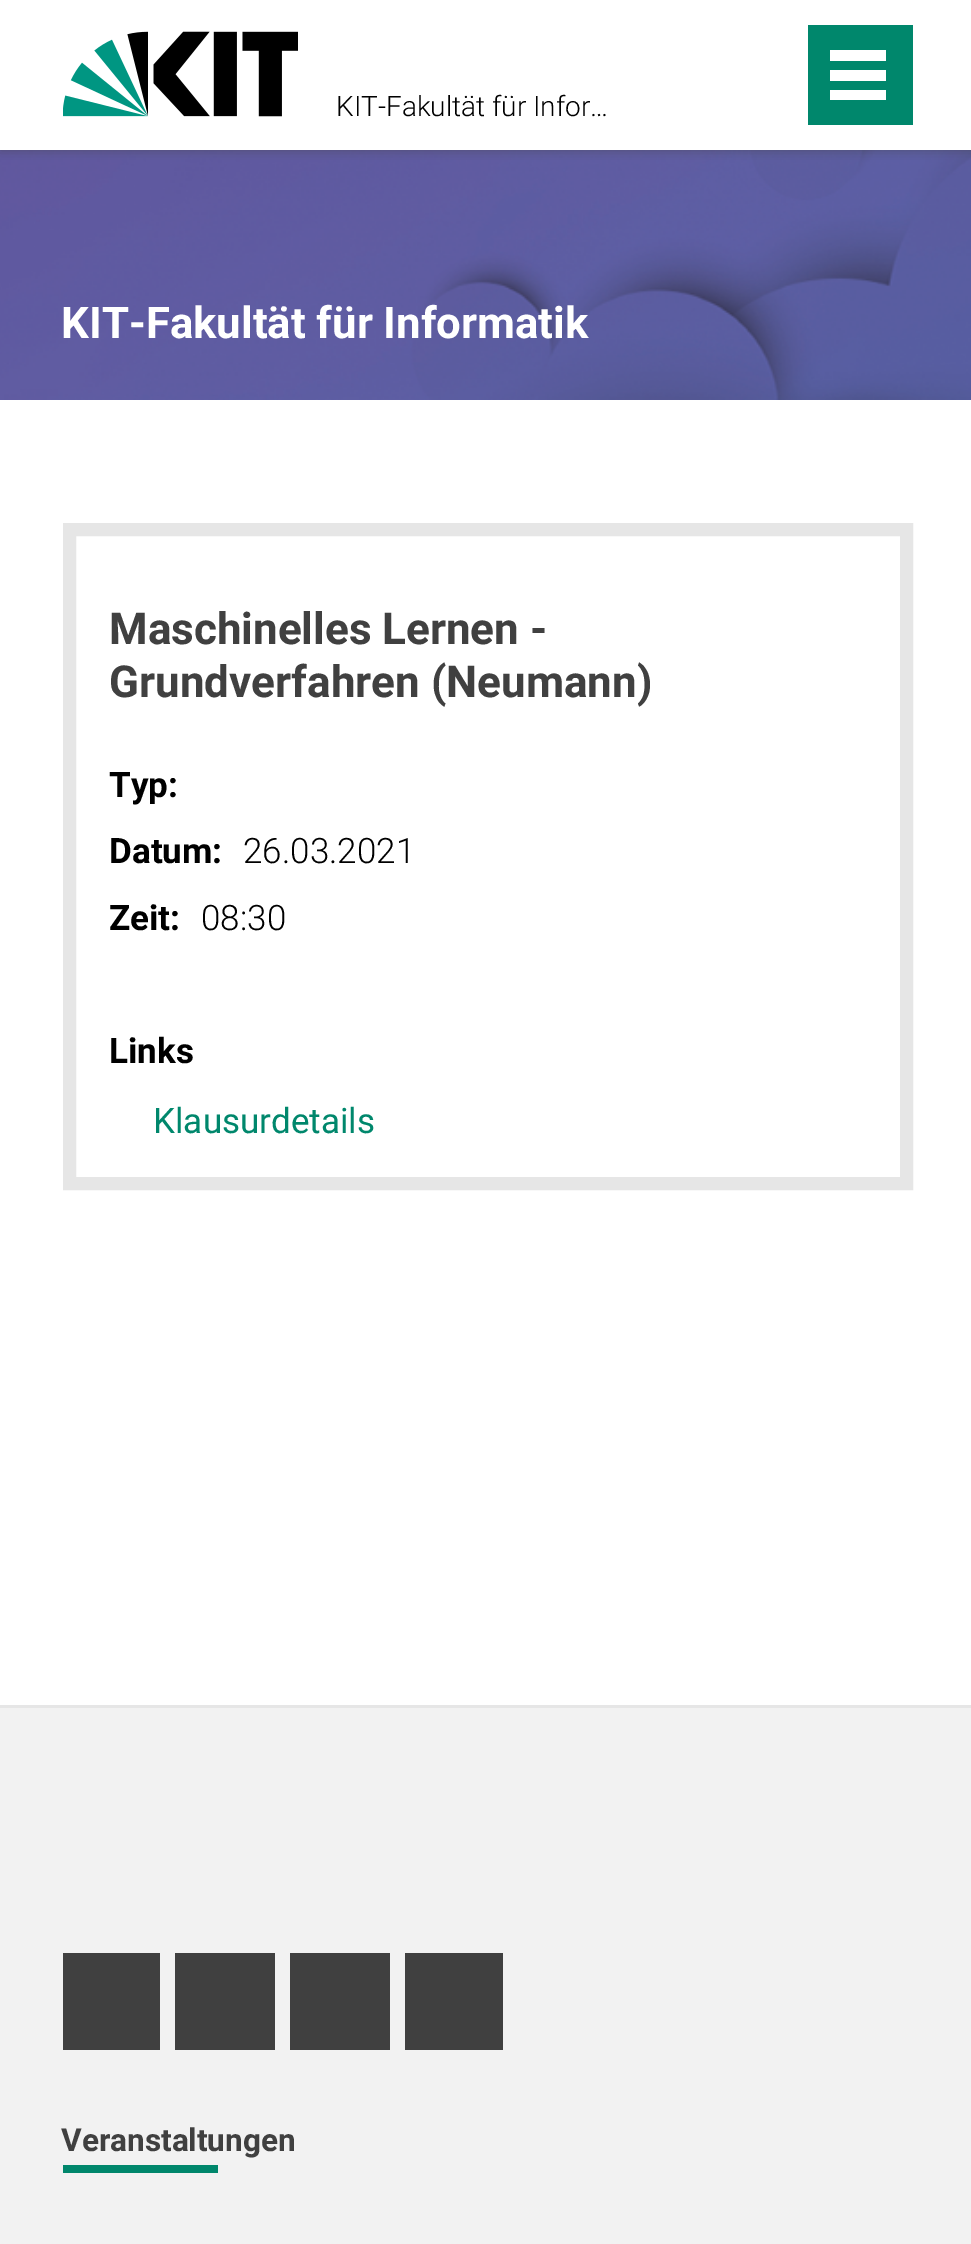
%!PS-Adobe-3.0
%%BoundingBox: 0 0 971 2244
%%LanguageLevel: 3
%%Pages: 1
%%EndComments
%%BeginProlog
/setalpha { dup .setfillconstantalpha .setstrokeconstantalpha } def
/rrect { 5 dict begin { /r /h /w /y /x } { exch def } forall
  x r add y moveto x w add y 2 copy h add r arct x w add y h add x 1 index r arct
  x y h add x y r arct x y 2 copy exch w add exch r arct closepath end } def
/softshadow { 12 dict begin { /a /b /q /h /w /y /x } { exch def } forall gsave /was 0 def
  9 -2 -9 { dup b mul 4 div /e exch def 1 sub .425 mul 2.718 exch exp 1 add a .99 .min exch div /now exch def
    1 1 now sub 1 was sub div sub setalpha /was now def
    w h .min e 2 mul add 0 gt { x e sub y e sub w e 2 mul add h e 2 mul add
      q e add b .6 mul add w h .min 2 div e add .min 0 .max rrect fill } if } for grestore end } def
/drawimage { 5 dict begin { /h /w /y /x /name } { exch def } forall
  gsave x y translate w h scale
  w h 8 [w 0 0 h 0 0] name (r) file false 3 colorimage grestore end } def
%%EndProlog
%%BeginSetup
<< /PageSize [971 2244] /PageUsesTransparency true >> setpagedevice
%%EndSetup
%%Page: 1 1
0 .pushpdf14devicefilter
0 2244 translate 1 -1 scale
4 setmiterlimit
1 setgray
0 0 971 2244 rectfill
(images/2.raw) 0 150 971 250 drawimage
gsave
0 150 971 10 rectclip
0.251 setgray
0 0 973 150 0 6 0.5 softshadow
grestore
(images/1.raw) 63 31 235 86 drawimage
0 0.529 0.424 setrgbcolor
808 25 105 100 rectfill
1 setgray
830 90 56 10 rectfill
830 70 56 11 rectfill
830 50 56 11 rectfill
0.902 setgray
13 setlinewidth
69.5 529.5 837 654 rectstroke
0.949 setgray
0 1708 971 536 rectfill
0.902 setgray
0 1705 971 3 rectfill
0.251 setgray
63 1953 97 97 rectfill
175 1953 100 97 rectfill
290 1953 100 97 rectfill
405 1953 98 97 rectfill
0 0.529 0.424 setrgbcolor
63 2165 155 8 rectfill
/Roboto-Light [28 0 0 -28 0 0] selectfont
0 setgray
336 116 moveto (KIT-Fakultät für Infor…) show
/Roboto-Bold [43.75 0 0 -43.75 0 0] selectfont
1 setgray
61 338 moveto (KIT-Fakultät für Informatik) show
/Roboto-Bold [44 0 0 -44 0 0] selectfont
0.251 setgray
109 644 moveto (Maschinelles Lernen -) show
109 697 moveto (Grundverfahren \(Neumann\)) show
/Roboto-Bold [35 0 0 -35 0 0] selectfont
0 setgray
109 797 moveto (Typ:) show
109 863 moveto (Datum:) show
/Roboto-Light [35 0 0 -35 0 0] selectfont
243 863 moveto (26.03.2021) show
/Roboto-Bold [35 0 0 -35 0 0] selectfont
109 930 moveto (Zeit:) show
/Roboto-Light [35 0 0 -35 0 0] selectfont
201 930 moveto (08:30) show
/Roboto-Bold [35 0 0 -35 0 0] selectfont
109 1063 moveto (Links) show
/Roboto-Regular [35 0 0 -35 0 0] selectfont
0 0.529 0.424 setrgbcolor
153 1133 moveto (Klausurdetails) show
/Roboto-Bold [31.5 0 0 -31.5 0 0] selectfont
0.251 setgray
61 2151 moveto (Veranstaltungen) show
.poppdf14devicefilter showpage
%%EOF
